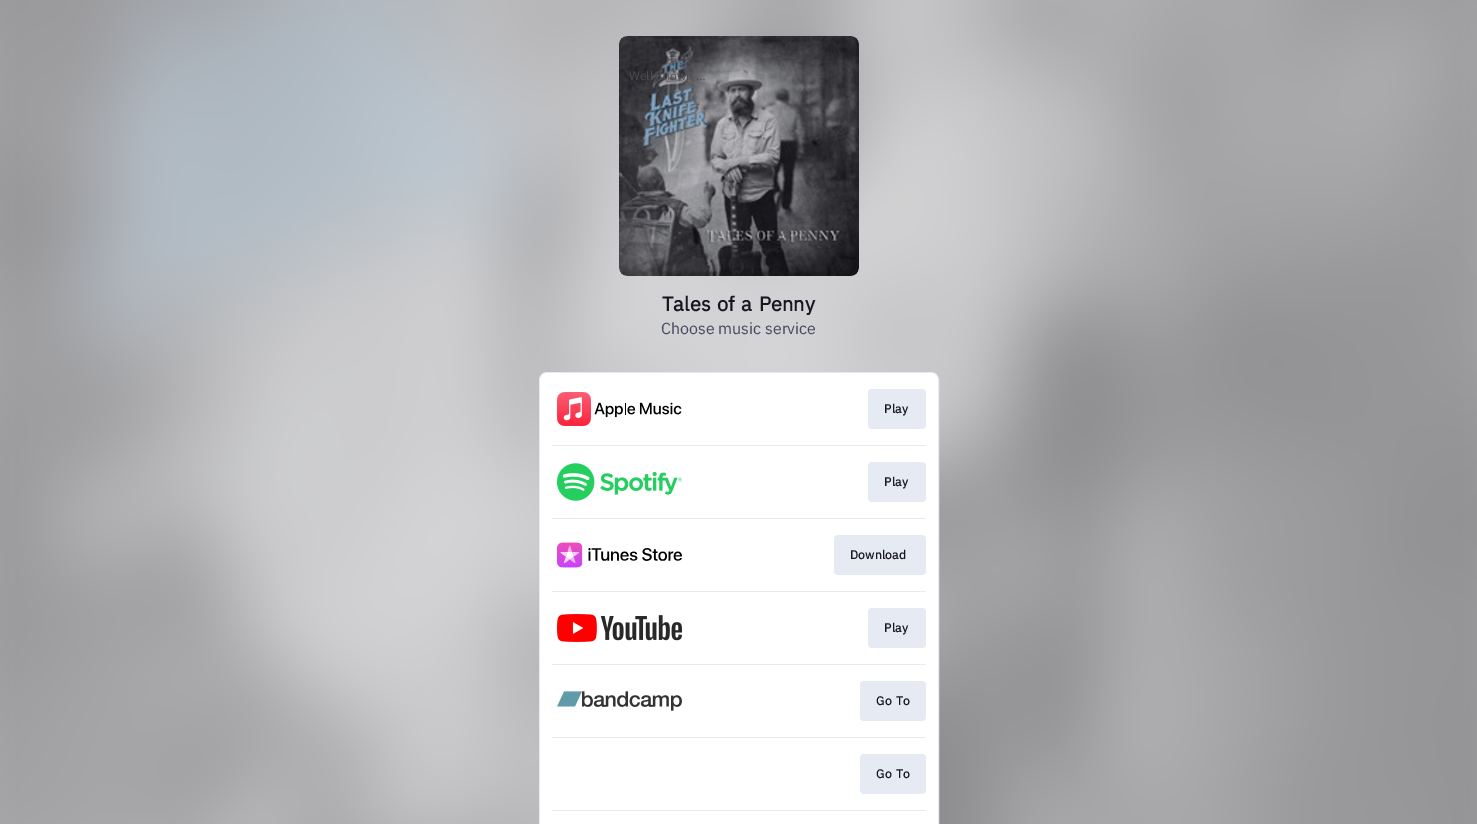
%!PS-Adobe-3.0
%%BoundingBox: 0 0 1477 824
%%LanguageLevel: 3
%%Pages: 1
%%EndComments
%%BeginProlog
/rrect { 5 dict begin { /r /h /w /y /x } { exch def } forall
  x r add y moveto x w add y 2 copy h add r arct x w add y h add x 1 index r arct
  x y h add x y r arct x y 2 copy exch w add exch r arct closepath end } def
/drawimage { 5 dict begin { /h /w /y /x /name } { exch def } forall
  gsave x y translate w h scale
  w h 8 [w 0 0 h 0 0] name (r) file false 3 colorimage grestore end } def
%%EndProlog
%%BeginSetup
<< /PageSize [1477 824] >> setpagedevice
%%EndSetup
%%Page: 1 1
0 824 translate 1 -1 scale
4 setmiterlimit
1 setgray
0 0 1477 824 rectfill
(images/1.raw) 0 0 1477 824 drawimage
(images/2.raw) 619 36 240 240 drawimage
0.902 0.918 0.949 setrgbcolor
539.5 372.5 399 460 7.5 rrect stroke
1 setgray
540 373 398 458 7 rrect fill
(images/3.raw) 557 392 125 34 drawimage
0.902 0.918 0.949 setrgbcolor
868 389 58 40 4 rrect fill
552 445 374 1 rectfill
(images/4.raw) 557 463 125 38 drawimage
868 462 58 40 4 rrect fill
552 518 374 1 rectfill
(images/5.raw) 557 542 125 26 drawimage
834 535 92 40 4 rrect fill
552 591 374 1 rectfill
(images/6.raw) 557 614 125 28 drawimage
868 608 58 40 4 rrect fill
552 664 374 1 rectfill
(images/7.raw) 557 691 125 20 drawimage
860 681 66 40 4 rrect fill
552 737 374 1 rectfill
860 754 66 40 4 rrect fill
552 810 374 1 rectfill
/IBMPlexSans-Regular [12 0 0 -12 0 0] selectfont
0.243 0.239 0.259 setrgbcolor
670 62 moveto (t) show
0.302 0.302 0.318 setrgbcolor
629 80 moveto (Well Known …) show
/IBMPlexSans-Bold [20 0 0 -20 0 0] selectfont
0.094 0.09 0.129 setrgbcolor
662 311 moveto 2 0 32 (Tales of a Penny) widthshow
/IBMPlexSans-Regular [16 0 0 -16 0 0] selectfont
0.271 0.294 0.373 setrgbcolor
661 334 moveto (Choose music service) show
/IBMPlexSans-Bold [12 0 0 -12 0 0] selectfont
0.094 0.09 0.129 setrgbcolor
884 413 moveto 0.25 0 (Play) ashow
884 486 moveto 0.25 0 (Play) ashow
850 559 moveto 0.25 0 (Download) ashow
884 632 moveto 0.25 0 (Play) ashow
876 705 moveto 1 0 32 0.25 0 (Go To) awidthshow
876 778 moveto 1 0 32 0.25 0 (Go To) awidthshow
showpage
%%EOF
